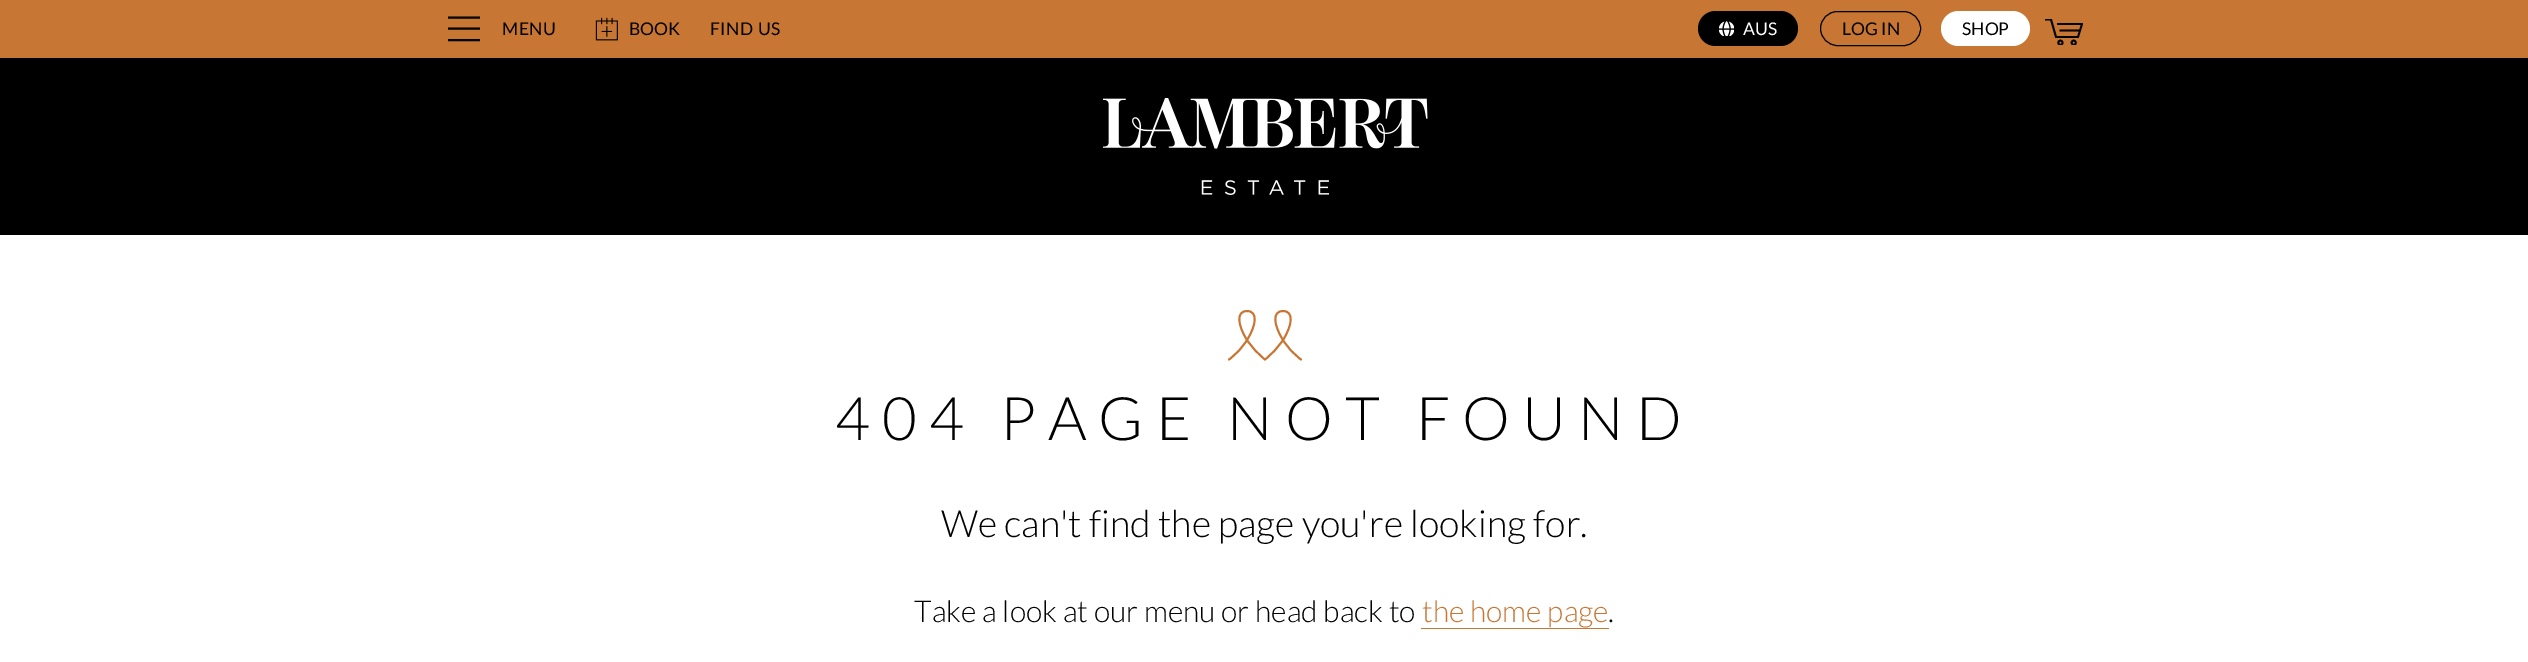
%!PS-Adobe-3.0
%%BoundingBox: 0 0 2528 662
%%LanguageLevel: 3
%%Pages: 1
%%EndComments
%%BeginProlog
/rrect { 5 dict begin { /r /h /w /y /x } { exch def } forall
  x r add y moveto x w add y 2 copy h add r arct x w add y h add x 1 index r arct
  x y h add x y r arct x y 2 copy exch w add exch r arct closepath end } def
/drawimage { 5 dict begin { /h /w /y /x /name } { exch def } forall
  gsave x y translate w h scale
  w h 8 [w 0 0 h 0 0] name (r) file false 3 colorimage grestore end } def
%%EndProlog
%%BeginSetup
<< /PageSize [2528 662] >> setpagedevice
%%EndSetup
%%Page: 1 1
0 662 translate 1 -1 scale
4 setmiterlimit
1 setgray
0 0 2528 662 rectfill
0 setgray
0 58 2528 177 rectfill
0.78 0.463 0.2 setrgbcolor
0 0 2528 58 rectfill
gsave
448 14 32 30 rectclip
0 setgray
2.1 setlinewidth
newpath 447.5 17.5 moveto 480.5 17.5 lineto 447.5 28.5 moveto 480.5 28.5 lineto 447.5 40 moveto 480.5 40 lineto stroke
grestore
(images/1.raw) 595 17 23 24 drawimage
0 setgray
1698 11 100 35 17.5 rrect fill
(images/2.raw) 1719 21 15 15 drawimage
1820.5 11.5 100 34 17 rrect stroke
1 setgray
1941 11 89 35 17.5 rrect fill
gsave
2045 19 38 26 rectclip
0 setgray
1.8 setlinewidth
newpath 2045 19.5 moveto 2051 19.5 lineto 2056 37 lineto 2078 37 lineto 2082 24 lineto 2057 24 lineto 2080 30.5 moveto 2059.5 30.5 lineto stroke
newpath 2073.7 42.7 2.1 0 360 arc closepath stroke
newpath 2060.4 42.7 2.1 0 360 arc closepath stroke
grestore
(images/3.raw) 1103 98 325 97 drawimage
0.78 0.463 0.2 setrgbcolor
1.9 setlinewidth
1 setlinecap
newpath 1247 311 moveto 1236 311 1237.5 325 1247 340 curveto 1256.5 325 1258 311 1247 311 curveto closepath 1283 311 moveto 1294 311 1292.5 325 1283 340 curveto 1273.5 325 1272 311 1283 311 curveto closepath stroke
newpath 1301 359.5 moveto 1293.5 354 1287.5 347.5 1283 340 curveto 1278 347.5 1272 354 1265 359.5 curveto 1258 354 1252 347.5 1247 340 curveto 1242.5 347.5 1236.5 354 1229 359.5 curveto stroke
1421 628 188 1 rectfill
/Lato-Regular [17.5 0 0 -17.5 0 0] selectfont
0 setgray
502 35 moveto 0.5 0 (MENU) ashow
629 35 moveto (BOOK) show
710 35 moveto 0.5 0 (FIND US) ashow
1 setgray
1743 35 moveto (AUS) show
0 setgray
1842 35 moveto (LOG IN) show
1962 35 moveto (SHOP) show
/Lato-Light [60 0 0 -60 0 0] selectfont
835 440 moveto 12.2 0 (404 PAGE NOT FOUND) ashow
/Lato-Light [37.5 0 0 -37.5 0 0] selectfont
941 537 moveto (We can't find the page you're looking for.) show
/Lato-Light [30 0 0 -30 0 0] selectfont
914 622 moveto (Take a look at our menu or head back to) show
0.78 0.463 0.2 setrgbcolor
1422 622 moveto (the home page) show
0 setgray
1608 622 moveto (.) show
showpage
%%EOF
